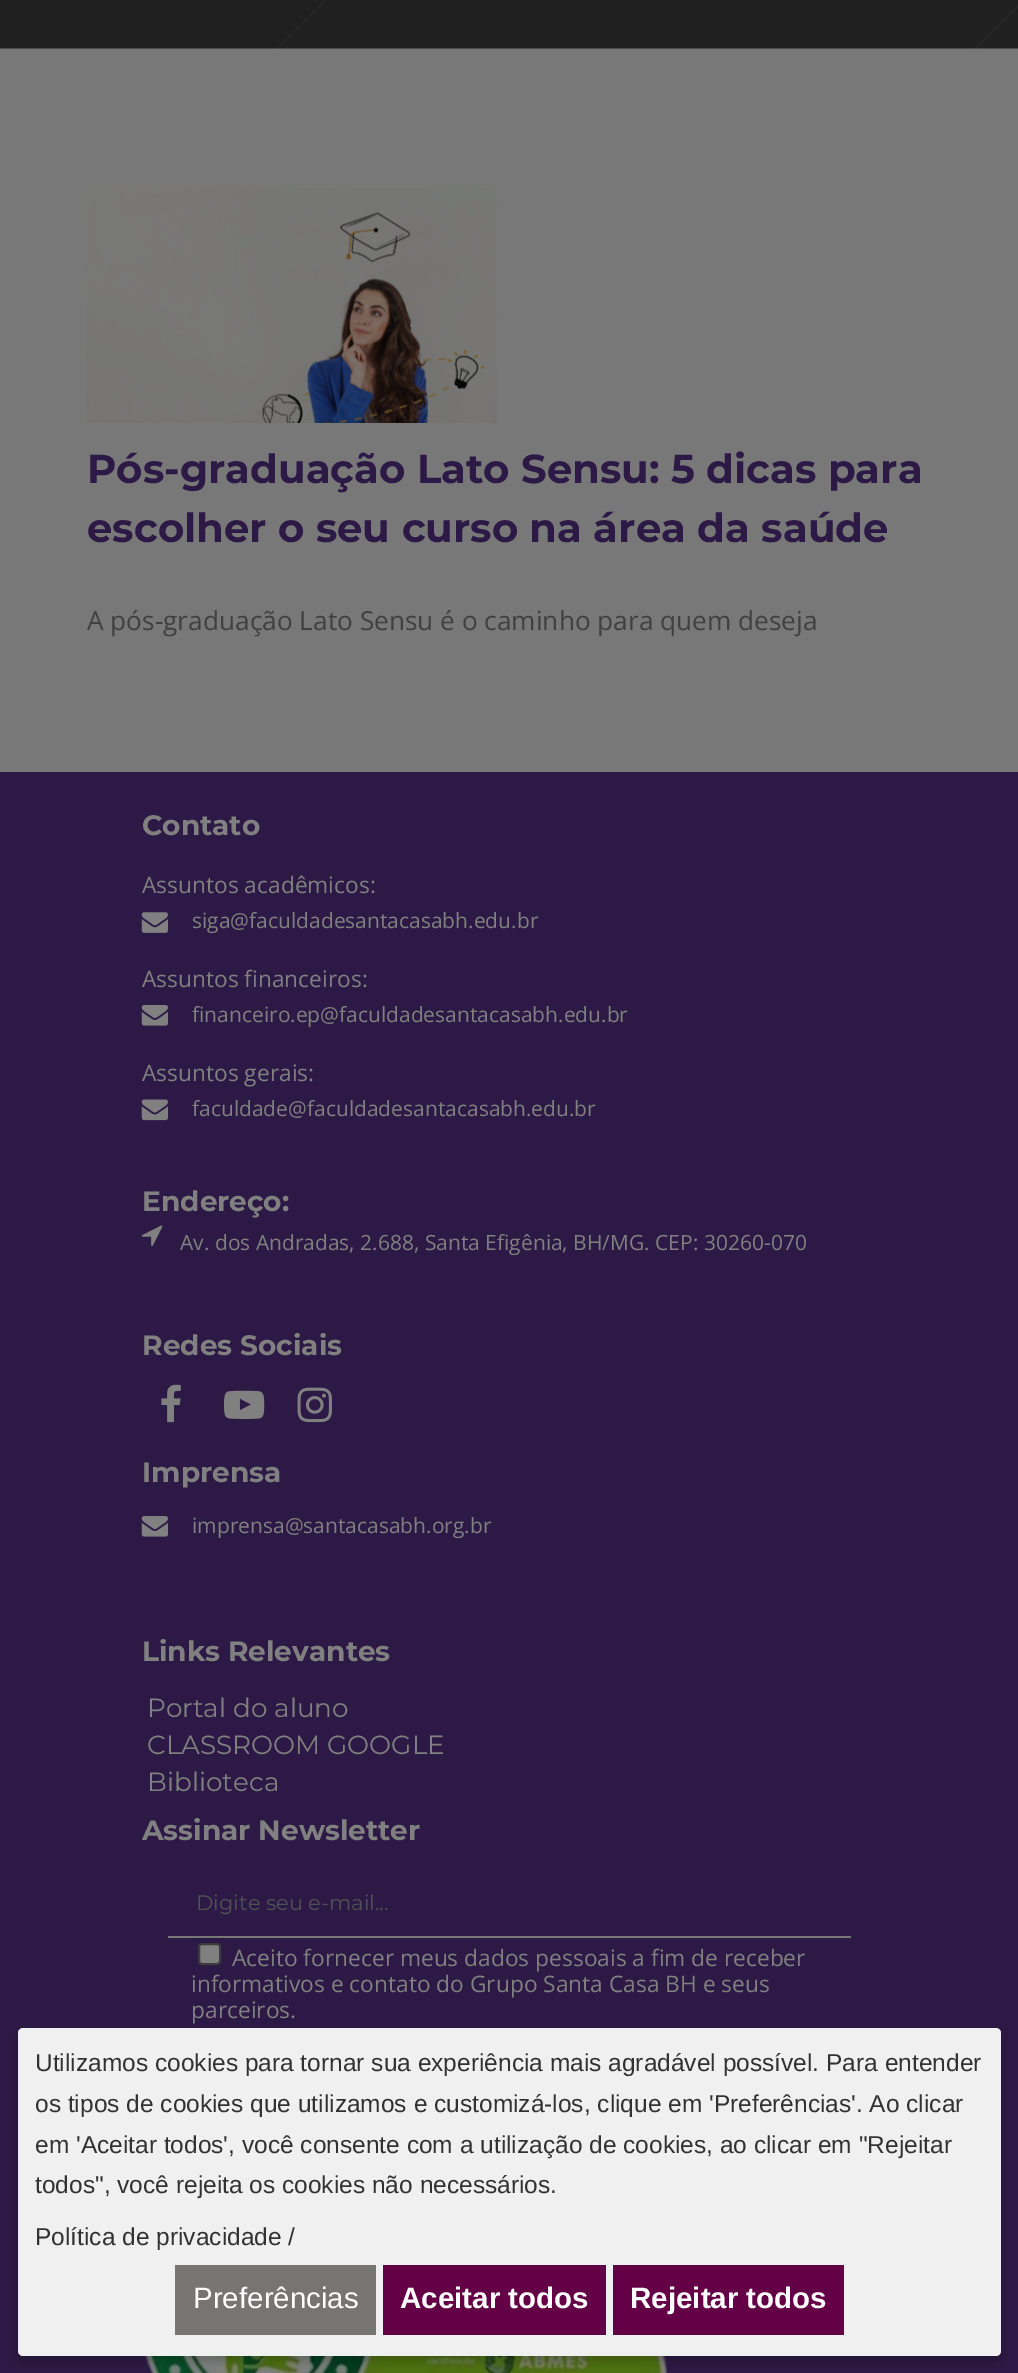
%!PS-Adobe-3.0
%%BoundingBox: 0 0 1018 2373
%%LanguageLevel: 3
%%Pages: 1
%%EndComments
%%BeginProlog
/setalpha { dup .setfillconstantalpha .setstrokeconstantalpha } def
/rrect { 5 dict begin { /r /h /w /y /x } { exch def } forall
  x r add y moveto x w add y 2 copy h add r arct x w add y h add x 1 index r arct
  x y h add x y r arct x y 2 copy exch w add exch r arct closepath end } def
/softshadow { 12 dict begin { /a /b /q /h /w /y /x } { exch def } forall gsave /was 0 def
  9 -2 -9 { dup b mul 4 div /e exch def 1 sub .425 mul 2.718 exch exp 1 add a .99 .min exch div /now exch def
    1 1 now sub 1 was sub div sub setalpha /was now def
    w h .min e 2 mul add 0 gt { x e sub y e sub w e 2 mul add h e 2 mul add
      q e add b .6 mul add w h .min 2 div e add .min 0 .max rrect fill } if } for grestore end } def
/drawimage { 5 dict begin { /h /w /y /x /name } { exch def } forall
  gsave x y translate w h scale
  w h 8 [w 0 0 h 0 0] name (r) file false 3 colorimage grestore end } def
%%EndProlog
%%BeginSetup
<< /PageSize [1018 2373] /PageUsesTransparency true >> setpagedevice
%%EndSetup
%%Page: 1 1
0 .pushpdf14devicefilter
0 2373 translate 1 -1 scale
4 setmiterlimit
0.471 setgray
0 0 1018 2373 rectfill
(images/1.raw) 0 0 1018 49 drawimage
(images/2.raw) 86 188 411 235 drawimage
0.173 0.098 0.271 setrgbcolor
0 772 1018 1601 rectfill
(images/3.raw) 141 912 27 21 drawimage
(images/4.raw) 141 1005 27 21 drawimage
(images/5.raw) 141 1099 27 22 drawimage
(images/6.raw) 141 1225 22 22 drawimage
(images/7.raw) 161 1384 20 39 drawimage
(images/8.raw) 224 1390 41 29 drawimage
(images/9.raw) 297 1387 35 36 drawimage
(images/10.raw) 141 1516 27 21 drawimage
0.463 setgray
168 1936 683 2 rectfill
0.502 setgray
199 1944 21 20 3 rrect gsave fill grestore
0.231 setgray
2 setlinewidth
stroke
(images/11.raw) 144 2356 523 17 drawimage
0 setgray
18 2034 983 327 5 5 0.2 softshadow
0.941 setgray
18 2028 983 328 5 rrect fill
0.467 0.455 0.455 setrgbcolor
175 2265 201 70 rectfill
0.392 0 0.275 setrgbcolor
383 2265 223 70 rectfill
613 2265 231 70 rectfill
/Montserrat-Bold [40.25 0 0 -40.25 0 0] selectfont
0.173 0.098 0.271 setrgbcolor
87 483 moveto (Pós-graduação Lato Sensu: 5 dicas para) show
87 542 moveto (escolher o seu curso na área da saúde) show
/OpenSans-Regular [26.25 0 0 -26.25 0 0] selectfont
0.251 setgray
87 630 moveto (A pós-graduação Lato Sensu é o caminho para quem deseja) show
/Montserrat-Bold [28 0 0 -28 0 0] selectfont
0.502 setgray
142 835 moveto (Contato) show
/OpenSans-Regular [22.75 0 0 -22.75 0 0] selectfont
142 893 moveto (Assuntos acadêmicos:) show
/OpenSans-Regular [21 0 0 -21 0 0] selectfont
192 928 moveto (siga@faculdadesantacasabh.edu.br) show
/OpenSans-Regular [22.75 0 0 -22.75 0 0] selectfont
142 987 moveto (Assuntos financeiros:) show
/OpenSans-Regular [21 0 0 -21 0 0] selectfont
192 1022 moveto (financeiro.ep@faculdadesantacasabh.edu.br) show
/OpenSans-Regular [22.75 0 0 -22.75 0 0] selectfont
142 1081 moveto (Assuntos gerais:) show
/OpenSans-Regular [21 0 0 -21 0 0] selectfont
192 1116 moveto (faculdade@faculdadesantacasabh.edu.br) show
/Montserrat-Bold [28 0 0 -28 0 0] selectfont
142 1211 moveto (Endereço:) show
/OpenSans-Regular [21 0 0 -21 0 0] selectfont
180 1250 moveto (Av. dos Andradas, 2.688, Santa Efigênia, BH/MG. CEP: 30260-070) show
/Montserrat-Bold [28 0 0 -28 0 0] selectfont
142 1355 moveto (Redes Sociais) show
142 1482 moveto (Imprensa) show
/OpenSans-Regular [21 0 0 -21 0 0] selectfont
192 1533 moveto (imprensa@santacasabh.org.br) show
/Montserrat-Bold [28 0 0 -28 0 0] selectfont
142 1661 moveto (Links Relevantes) show
/Montserrat-Regular [26.25 0 0 -26.25 0 0] selectfont
147 1717 moveto (Portal do aluno) show
147 1754 moveto (CLASSROOM GOOGLE) show
147 1791 moveto (Biblioteca) show
/Montserrat-Bold [28 0 0 -28 0 0] selectfont
142 1840 moveto (Assinar Newsletter) show
/Montserrat-Regular [21 0 0 -21 0 0] selectfont
0.314 0.318 0.329 setrgbcolor
196 1910 moveto (Digite seu e-mail...) show
/OpenSans-Regular [22.75 0 0 -22.75 0 0] selectfont
0.502 setgray
232 1966 moveto (Aceito fornecer meus dados pessoais a fim de receber) show
191 1992 moveto (informativos e contato do Grupo Santa Casa BH e seus) show
191 2018 moveto (parceiros.) show
/LiberationSans-Regular [24.5 0 0 -24.5 0 0] selectfont
0.196 setgray
35 2071 moveto (Utilizamos cookies para tornar sua experiência mais agradável possível. Para entender) show
35 2112 moveto (os tipos de cookies que utilizamos e customizá-los, clique em 'Preferências'. Ao clicar) show
35 2153 moveto (em 'Aceitar todos', você consente com a utilização de cookies, ao clicar em "Rejeitar) show
35 2193 moveto (todos", você rejeita os cookies não necessários.) show
35 2245 moveto (Política de privacidade /) show
/LiberationSans-Regular [29.5 0 0 -29.5 0 0] selectfont
1 setgray
193 2308 moveto (Preferências) show
/LiberationSans-Bold [29.5 0 0 -29.5 0 0] selectfont
400 2308 moveto (Aceitar todos) show
630 2308 moveto (Rejeitar todos) show
.poppdf14devicefilter showpage
%%EOF
